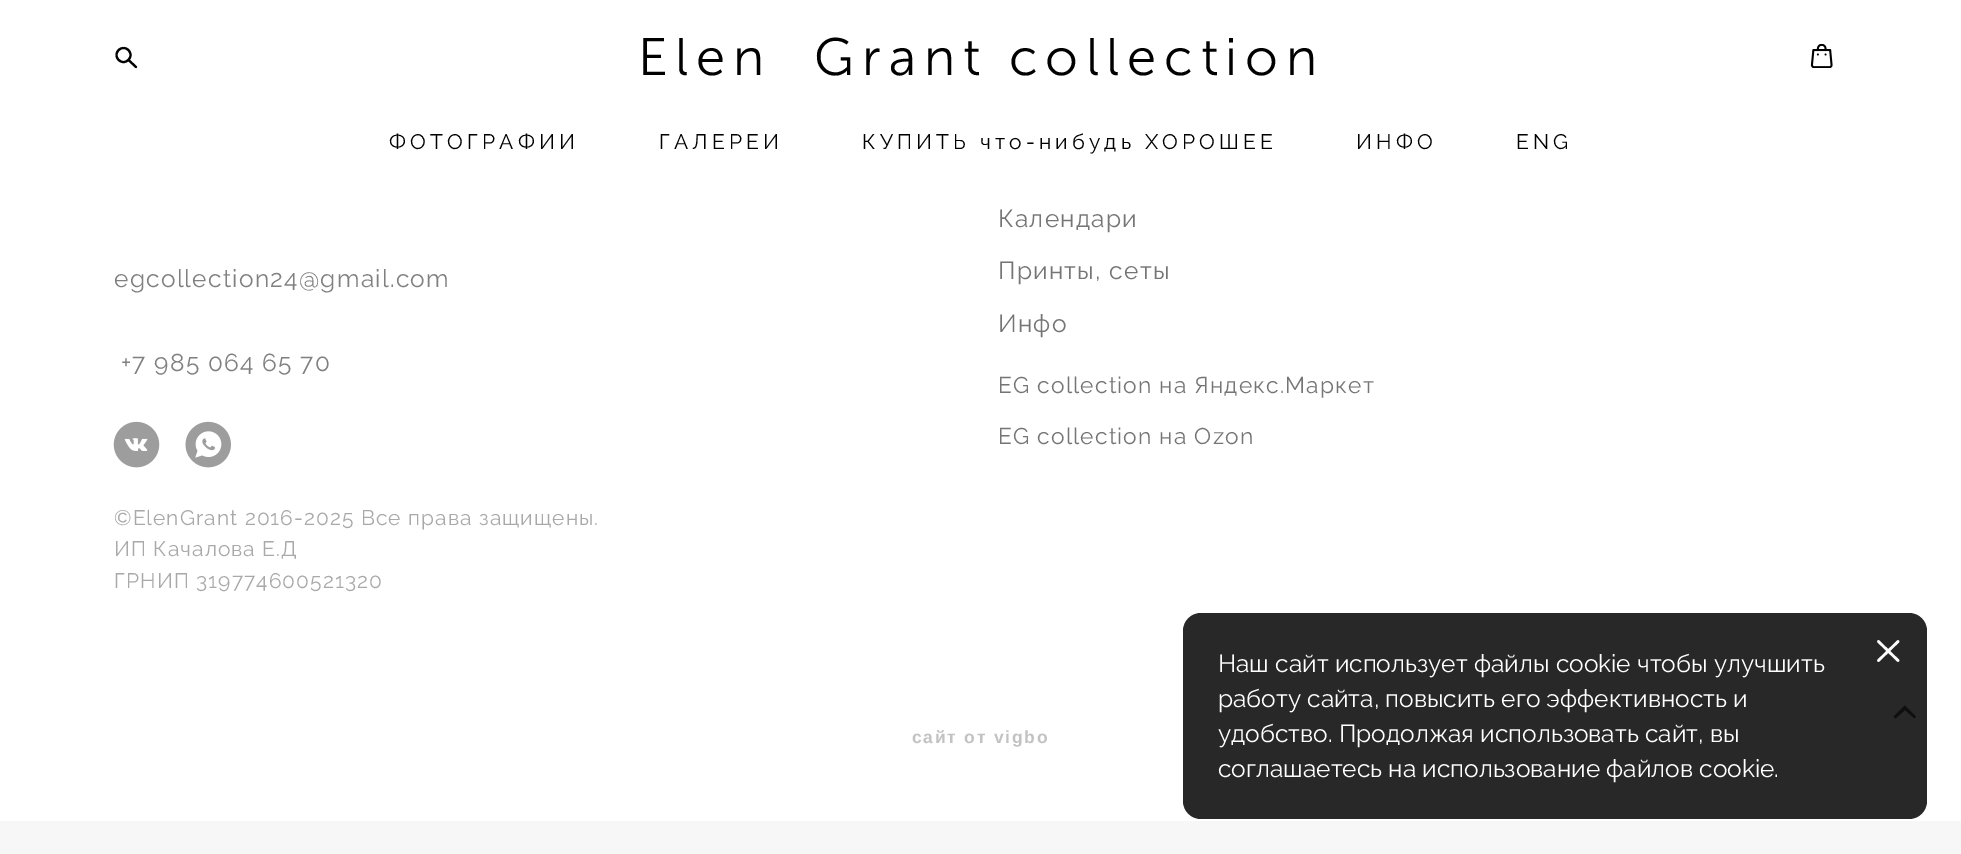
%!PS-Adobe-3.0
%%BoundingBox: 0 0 1961 854
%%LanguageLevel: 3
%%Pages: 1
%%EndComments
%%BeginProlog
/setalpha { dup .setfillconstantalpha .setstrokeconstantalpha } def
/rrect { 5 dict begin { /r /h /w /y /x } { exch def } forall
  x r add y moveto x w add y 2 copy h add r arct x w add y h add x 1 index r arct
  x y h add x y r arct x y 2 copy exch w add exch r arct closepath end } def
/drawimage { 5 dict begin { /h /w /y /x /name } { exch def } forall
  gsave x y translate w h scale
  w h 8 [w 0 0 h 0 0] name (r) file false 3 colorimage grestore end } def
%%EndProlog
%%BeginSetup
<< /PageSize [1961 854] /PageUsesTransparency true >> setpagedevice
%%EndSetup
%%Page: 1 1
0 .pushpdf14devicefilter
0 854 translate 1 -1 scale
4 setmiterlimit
0.969 setgray
0 0 1961 854 rectfill
1 setgray
0 0 1961 821 rectfill
0 setgray
2.1 setlinewidth
newpath 123.5 55 7 0 360 arc closepath stroke
1 setlinecap
1 setlinejoin
newpath 128.5 60 moveto 136 67 lineto stroke
(images/1.raw) 1810 44 23 24 drawimage
(images/2.raw) 113 421 47 47 drawimage
(images/3.raw) 185 421 46 47 drawimage
newpath 1916 716.5 moveto 1914.5 718.5 lineto 1905 710 lineto 1895.5 718.5 lineto 1893.5 716.5 lineto 1905 705.5 lineto closepath eofill
0.9 setalpha
0.067 setgray
1183 613 744 206 18 rrect fill
1 setalpha
1 setgray
2.6 setlinewidth
newpath 1898 641.5 moveto 1878.5 660.5 lineto 1878.5 641.5 moveto 1898 660.5 lineto stroke
/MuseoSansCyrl-Light [52.5 0 0 -52.5 0 0] selectfont
0 setgray
638 75 moveto 7.9 0 (Elen  Grant collection) ashow
/Raleway-Regular [21 0 0 -21 0 0] selectfont
389 149 moveto 4.2 0 (ФОТОГРАФИИ) ashow
659 149 moveto 4.2 0 (ГАЛЕРЕИ) ashow
862 149 moveto 4.2 0 (КУПИТЬ что-нибудь ХОРОШЕЕ) ashow
1356 149 moveto 4.2 0 (ИНФО) ashow
1516 149 moveto 4.2 0 (ENG) ashow
/Raleway-Regular [24.5 0 0 -24.5 0 0] selectfont
0.502 setgray
114 287 moveto 1.25 0 (egcollection24@gmail.com) ashow
121 371 moveto 1.25 0 (+7 985 064 65 70) ashow
/Raleway-Regular [21 0 0 -21 0 0] selectfont
0.663 setgray
114 525 moveto 1.05 0 (©ElenGrant 2016-2025 Все права защищены.) ashow
114 556 moveto 1.05 0 (ИП Качалова Е.Д) ashow
114 588 moveto 1.05 0 (ГРНИП 319774600521320) ashow
/Raleway-Regular [24.5 0 0 -24.5 0 0] selectfont
0.459 setgray
998 227 moveto 1.25 0 (Календари) ashow
998 279 moveto 1.25 0 (Принты, сеты) ashow
998 332 moveto 1.25 0 (Инфо) ashow
/Raleway-Regular [22.75 0 0 -22.75 0 0] selectfont
998 393 moveto 1.15 0 (EG collection на Яндекс.Маркет) ashow
998 444 moveto 1.15 0 (EG collection на Ozon) ashow
/LiberationSans-Bold [17.5 0 0 -17.5 0 0] selectfont
0.761 setgray
912 743 moveto 1.75 0 (сайт от vigbo) ashow
/Raleway-Regular [24.5 0 0 -24.5 0 0] selectfont
1 setgray
1218 672 moveto (Наш сайт использует файлы cookie чтобы улучшить) show
1218 707 moveto (работу сайта, повысить его эффективность и) show
1218 742 moveto (удобство. Продолжая использовать сайт, вы) show
1218 777 moveto (соглашаетесь на использование файлов cookie.) show
.poppdf14devicefilter showpage
%%EOF
